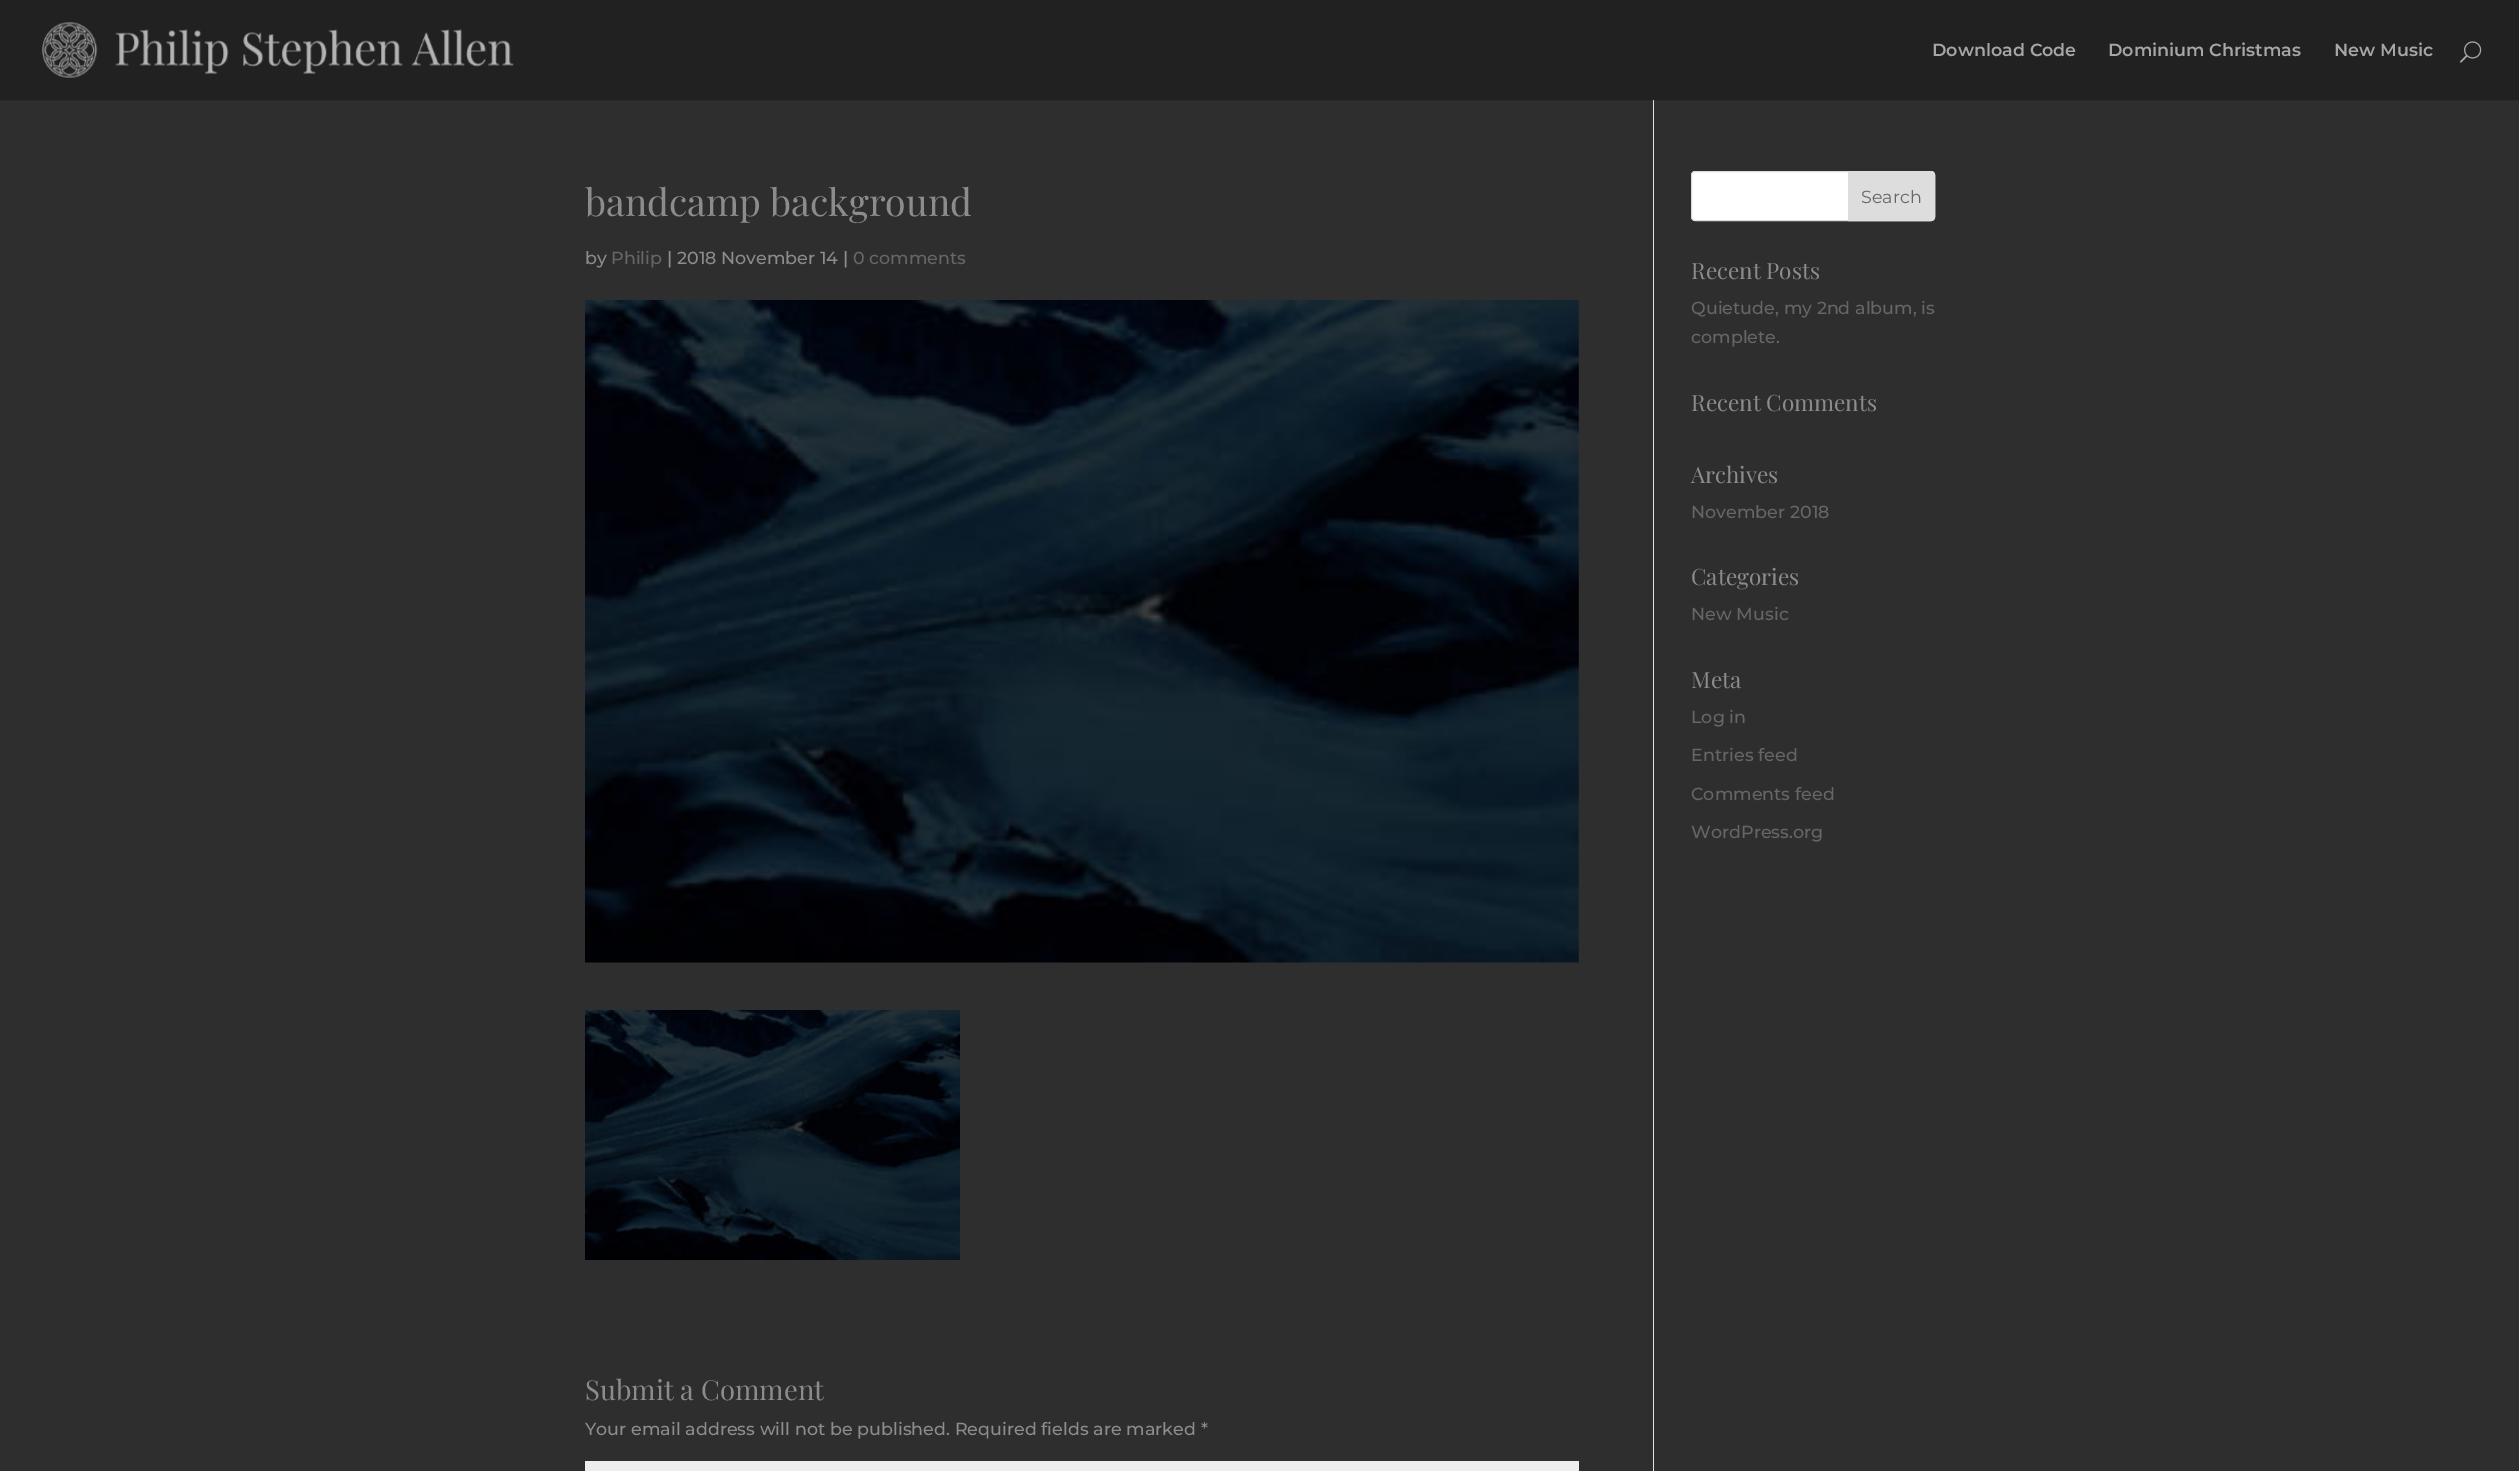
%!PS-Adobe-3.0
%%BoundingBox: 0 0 2519 1471
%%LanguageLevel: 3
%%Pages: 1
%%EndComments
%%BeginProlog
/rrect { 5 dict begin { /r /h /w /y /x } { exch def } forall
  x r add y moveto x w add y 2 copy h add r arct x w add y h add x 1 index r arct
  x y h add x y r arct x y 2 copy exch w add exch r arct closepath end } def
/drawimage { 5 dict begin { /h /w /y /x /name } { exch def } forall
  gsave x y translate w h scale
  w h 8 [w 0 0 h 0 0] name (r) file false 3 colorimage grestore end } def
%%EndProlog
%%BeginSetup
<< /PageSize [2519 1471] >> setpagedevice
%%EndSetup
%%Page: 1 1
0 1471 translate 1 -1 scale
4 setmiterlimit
0.18 setgray
0 0 2519 1471 rectfill
0.161 setgray
0 100 2519 1 rectfill
0.886 setgray
1653 99 1 1372 rectfill
0.129 setgray
0 0 2519 100 rectfill
(images/1.raw) 42 22 472 56 drawimage
(images/2.raw) 2460 41 22 22 drawimage
0.796 setgray
1653 100 1 1 rectfill
(images/3.raw) 585 300 994 663 drawimage
(images/4.raw) 585 1010 375 250 drawimage
0.933 setgray
585 1461 994 10 rectfill
1 setgray
1691.5 171.5 243 49 3.5 rrect gsave fill grestore
0.867 setgray
stroke
newpath 1848.5 171.5 moveto 1931 171.5 lineto 1933 171.5 1934.5 173 1934.5 175 curveto 1934.5 217 lineto 1934.5 219 1933 220.5 1931 220.5 curveto 1848.5 220.5 lineto closepath gsave fill grestore
stroke
/Montserrat-SemiBold [17.5 0 0 -17.5 0 0] selectfont
0.651 setgray
1932 56 moveto (Download Code) show
2108 56 moveto (Dominium Christmas) show
2334 56 moveto (New Music) show
/PlayfairDisplay-Regular [37.5 0 0 -37.5 0 0] selectfont
0.549 setgray
585 216 moveto (bandcamp background) show
/Montserrat-Medium [17.5 0 0 -17.5 0 0] selectfont
585 264 moveto (by) show
0.4 setgray
611 264 moveto (Philip) show
0.549 setgray
667 264 moveto (| 2018 November 14 |) show
0.4 setgray
853 264 moveto (0 comments) show
/PlayfairDisplay-Regular [27.5 0 0 -27.5 0 0] selectfont
0.549 setgray
585 1400 moveto (Submit a Comment) show
/Montserrat-Medium [17.5 0 0 -17.5 0 0] selectfont
585 1435 moveto (Your email address will not be published. Required fields are marked *) show
/Montserrat-Regular [17.5 0 0 -17.5 0 0] selectfont
0.4 setgray
1861 203 moveto (Search) show
/PlayfairDisplay-Regular [22.5 0 0 -22.5 0 0] selectfont
0.549 setgray
1691 279 moveto (Recent Posts) show
/Montserrat-Medium [17.5 0 0 -17.5 0 0] selectfont
0.4 setgray
1691 314 moveto (Quietude, my 2nd album, is) show
1691 343 moveto (complete.) show
/PlayfairDisplay-Regular [22.5 0 0 -22.5 0 0] selectfont
0.549 setgray
1691 411 moveto (Recent Comments) show
1691 483 moveto (Archives) show
/Montserrat-Medium [17.5 0 0 -17.5 0 0] selectfont
0.4 setgray
1691 518 moveto (November 2018) show
/PlayfairDisplay-Regular [22.5 0 0 -22.5 0 0] selectfont
0.549 setgray
1691 585 moveto (Categories) show
/Montserrat-Medium [17.5 0 0 -17.5 0 0] selectfont
0.4 setgray
1691 620 moveto (New Music) show
/PlayfairDisplay-Regular [22.5 0 0 -22.5 0 0] selectfont
0.549 setgray
1691 688 moveto (Meta) show
/Montserrat-Medium [17.5 0 0 -17.5 0 0] selectfont
0.4 setgray
1691 723 moveto (Log in) show
1691 761 moveto (Entries feed) show
1691 800 moveto (Comments feed) show
1691 838 moveto (WordPress.org) show
showpage
%%EOF
